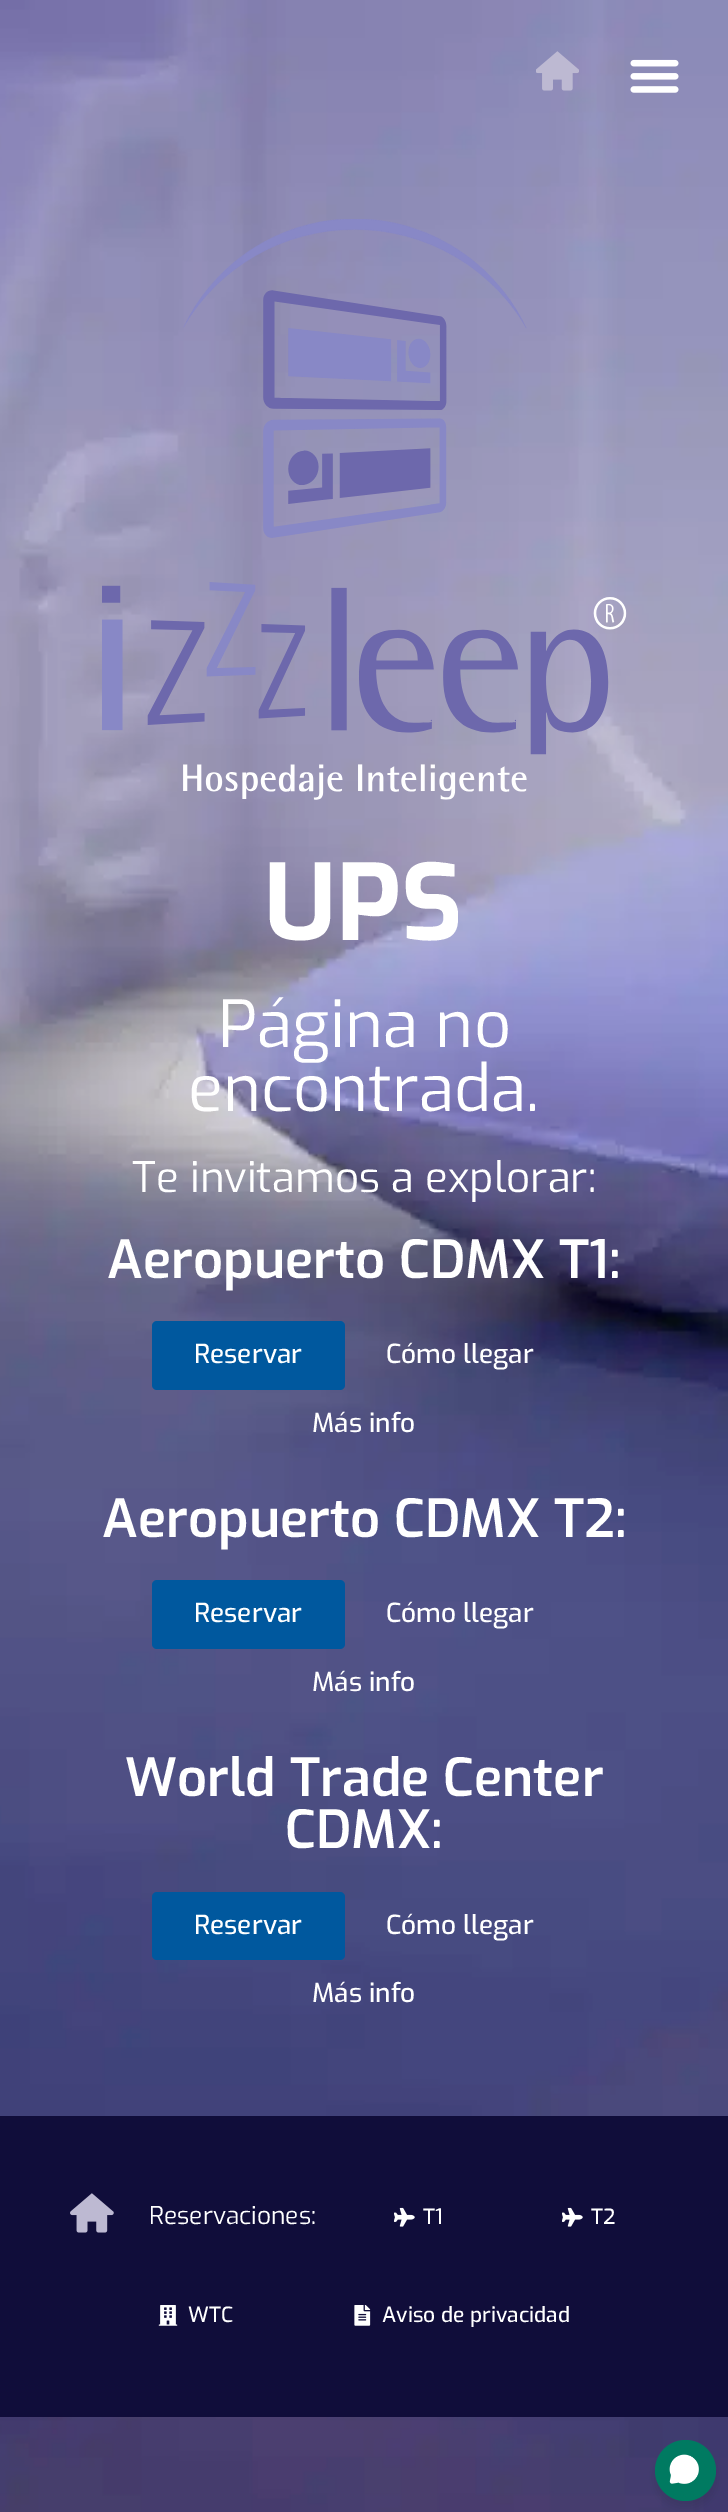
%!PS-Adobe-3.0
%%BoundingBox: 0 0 728 2512
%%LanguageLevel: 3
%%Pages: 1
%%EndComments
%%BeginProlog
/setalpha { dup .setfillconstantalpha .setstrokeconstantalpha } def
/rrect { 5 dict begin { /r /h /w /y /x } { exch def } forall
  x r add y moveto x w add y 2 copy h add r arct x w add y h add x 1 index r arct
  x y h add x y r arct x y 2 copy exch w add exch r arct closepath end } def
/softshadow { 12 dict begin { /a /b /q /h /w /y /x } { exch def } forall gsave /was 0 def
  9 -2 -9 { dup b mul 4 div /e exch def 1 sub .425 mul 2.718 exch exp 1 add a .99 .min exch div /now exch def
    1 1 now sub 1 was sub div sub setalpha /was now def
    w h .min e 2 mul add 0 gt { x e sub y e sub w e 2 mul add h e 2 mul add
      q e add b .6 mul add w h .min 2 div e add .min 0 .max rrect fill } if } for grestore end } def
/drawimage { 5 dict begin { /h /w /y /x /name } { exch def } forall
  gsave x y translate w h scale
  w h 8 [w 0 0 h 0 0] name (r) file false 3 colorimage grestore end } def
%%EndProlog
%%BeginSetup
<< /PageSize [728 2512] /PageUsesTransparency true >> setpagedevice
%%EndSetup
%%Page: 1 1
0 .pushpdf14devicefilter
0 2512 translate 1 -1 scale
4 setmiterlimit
1 setgray
0 0 728 2512 rectfill
(images/1.raw) 0 0 728 2512 drawimage
(images/2.raw) 536 51 43 40 drawimage
(images/3.raw) 630 59 49 34 drawimage
(images/4.raw) 102 219 525 581 drawimage
0 0.345 0.62 setrgbcolor
152 1321 193 69 5 rrect fill
152 1580 193 69 5 rrect fill
152 1892 193 68 5 rrect fill
0.063 0.051 0.227 setrgbcolor
0 2116 728 301 rectfill
(images/5.raw) 70 2193 44 40 drawimage
(images/6.raw) 394 2207 21 20 drawimage
(images/6.raw) 562 2207 21 20 drawimage
(images/7.raw) 158 2305 20 21 drawimage
(images/8.raw) 354 2305 17 21 drawimage
0 setgray
655 2447 61 61 30.5 5 0.1 softshadow
0 0.478 0.38 setrgbcolor
newpath 685.5 2470.5 30.5 0 360 arc closepath fill
(images/9.raw) 669 2454 30 30 drawimage
/Exo-Bold [105 0 0 -105 0 0] selectfont
1 setgray
264 940 moveto (UPS) show
/Exo-Regular [64.75 0 0 -64.75 0 0] selectfont
218 1047 moveto (Página no) show
188 1111 moveto (encontrada.) show
/Exo-Regular [42 0 0 -42 0 0] selectfont
132 1192 moveto (Te invitamos a explorar:) show
/Exo-SemiBold [52.5 0 0 -52.5 0 0] selectfont
107 1278 moveto (Aeropuerto CDMX T1:) show
/Exo-Medium [26.25 0 0 -26.25 0 0] selectfont
194 1363 moveto (Reservar) show
386 1363 moveto (Cómo llegar) show
312 1432 moveto (Más info) show
/Exo-SemiBold [52.5 0 0 -52.5 0 0] selectfont
102 1537 moveto (Aeropuerto CDMX T2:) show
/Exo-Medium [26.25 0 0 -26.25 0 0] selectfont
194 1622 moveto (Reservar) show
386 1622 moveto (Cómo llegar) show
312 1691 moveto (Más info) show
/Exo-SemiBold [52.5 0 0 -52.5 0 0] selectfont
125 1796 moveto (World Trade Center) show
285 1848 moveto (CDMX:) show
/Exo-Medium [26.25 0 0 -26.25 0 0] selectfont
194 1934 moveto (Reservar) show
386 1934 moveto (Cómo llegar) show
312 2002 moveto (Más info) show
/Exo-Regular [24.5 0 0 -24.5 0 0] selectfont
149 2224 moveto (Reservaciones:) show
/Exo-Medium [21 0 0 -21 0 0] selectfont
423 2224 moveto (T1) show
591 2224 moveto (T2) show
188 2322 moveto (WTC) show
382 2322 moveto (Aviso de privacidad) show
.poppdf14devicefilter showpage
%%EOF
